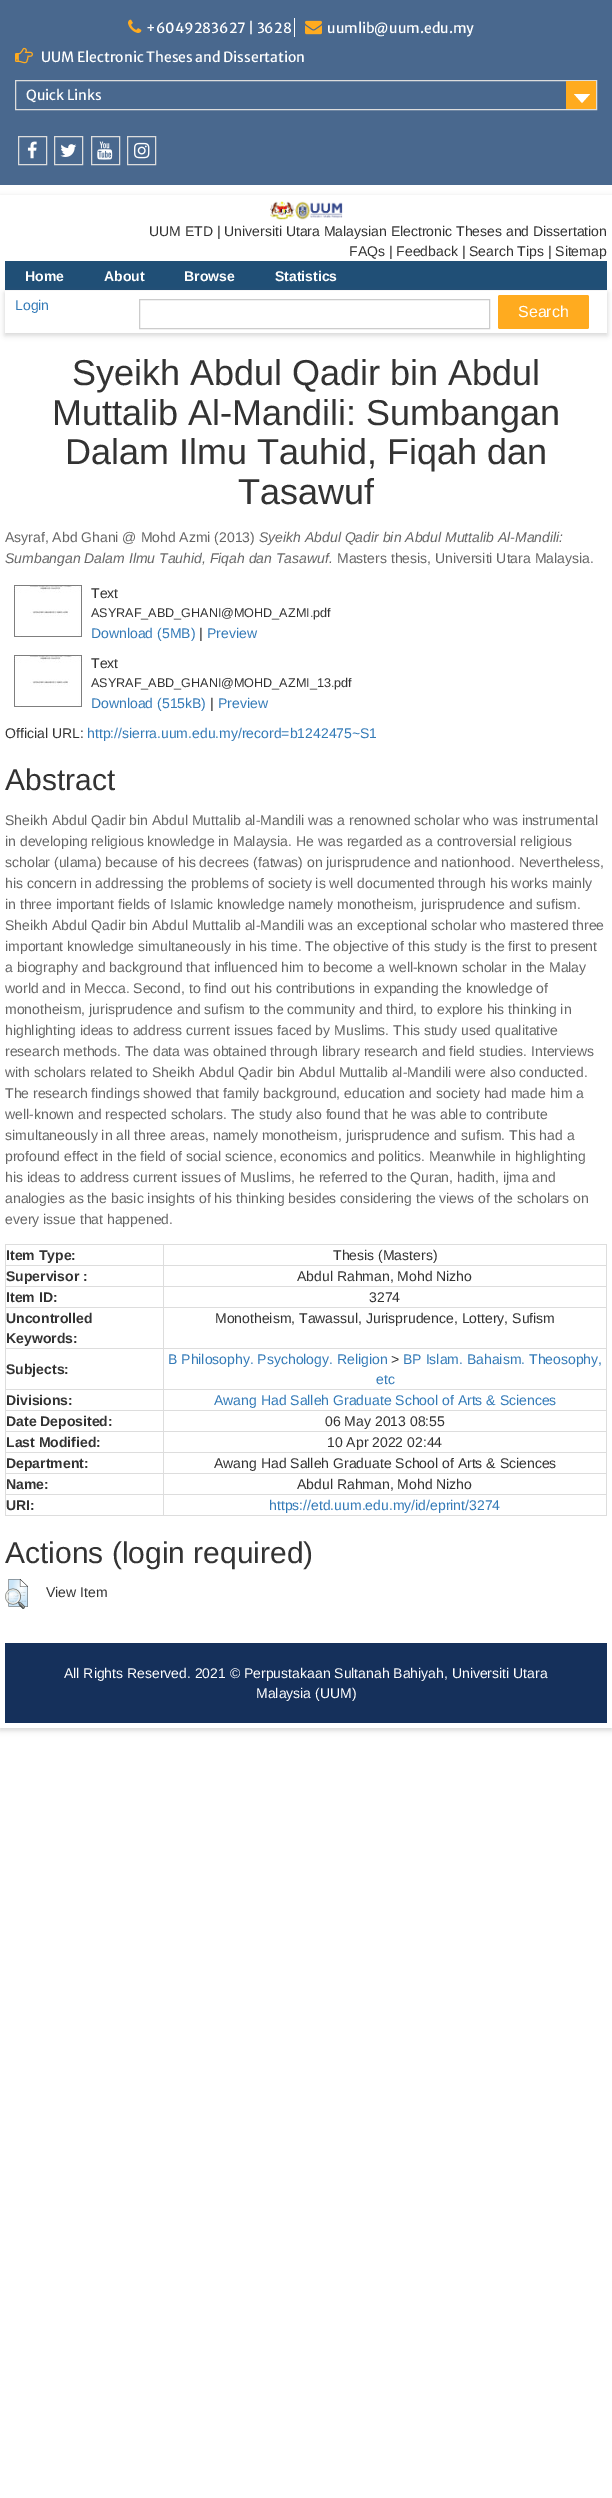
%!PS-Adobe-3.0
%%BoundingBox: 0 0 612 2498
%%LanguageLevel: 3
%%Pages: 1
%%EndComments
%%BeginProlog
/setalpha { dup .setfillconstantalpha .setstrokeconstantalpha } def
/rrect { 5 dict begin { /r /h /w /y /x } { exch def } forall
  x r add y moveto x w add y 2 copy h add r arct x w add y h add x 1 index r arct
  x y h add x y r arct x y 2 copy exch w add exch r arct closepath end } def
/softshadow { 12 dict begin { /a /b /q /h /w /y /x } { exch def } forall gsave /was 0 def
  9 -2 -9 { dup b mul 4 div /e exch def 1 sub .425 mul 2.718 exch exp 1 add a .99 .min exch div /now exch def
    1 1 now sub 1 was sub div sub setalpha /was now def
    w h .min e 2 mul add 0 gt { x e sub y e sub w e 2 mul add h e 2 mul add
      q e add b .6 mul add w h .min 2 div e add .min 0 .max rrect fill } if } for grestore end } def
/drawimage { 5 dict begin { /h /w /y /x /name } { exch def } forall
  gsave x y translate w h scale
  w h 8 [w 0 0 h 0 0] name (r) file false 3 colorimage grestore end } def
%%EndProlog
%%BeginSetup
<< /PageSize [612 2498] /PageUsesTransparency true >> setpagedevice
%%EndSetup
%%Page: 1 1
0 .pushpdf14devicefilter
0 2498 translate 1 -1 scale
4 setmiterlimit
1 setgray
0 0 612 2498 rectfill
0.286 0.408 0.557 setrgbcolor
0 0 612 185 rectfill
(images/1.raw) 128 19 14 14 drawimage
1 setgray
294 18 1 19 rectfill
(images/2.raw) 305 20 17 15 drawimage
(images/3.raw) 15 47 18 17 drawimage
0.867 setgray
15.5 80.5 581 29 rectstroke
1 0.671 0.122 setrgbcolor
566 81 30 28 rectfill
1 setgray
newpath 574 94 moveto 590 94 lineto 582 103 lineto closepath fill
0.867 setgray
18.5 136.5 28 28 rectstroke
(images/4.raw) 27 141 10 18 drawimage
54.5 136.5 28 28 rectstroke
(images/5.raw) 60 144 17 13 drawimage
91.5 136.5 28 28 rectstroke
(images/6.raw) 97 141 16 19 drawimage
127.5 136.5 28 28 rectstroke
(images/7.raw) 134 142 16 17 drawimage
gsave
newpath 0 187 moveto 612 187 lineto 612 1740 lineto 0 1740 lineto closepath 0 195 moveto 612 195 lineto 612 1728 lineto 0 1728 lineto closepath eoclip newpath
0.392 setgray
0 197 612 1533 0 3 0.3 softshadow
grestore
(images/8.raw) 270 201 73 19 drawimage
0.125 0.31 0.463 setrgbcolor
5 261 602 29 rectfill
0.392 setgray
5 293 602 42 0 3 0.3 softshadow
1 setgray
5 291 602 42 rectfill
0.8 setgray
139.5 299.5 350 29 rectstroke
1 0.671 0.122 setrgbcolor
498 295 91 34 2 rrect fill
(images/9.raw) 14 585 68 52 drawimage
(images/9.raw) 14 655 68 52 drawimage
0.867 setgray
163 1244 444 1 rectfill
163 1265 444 1 rectfill
163 1286 444 1 rectfill
163 1307 444 1 rectfill
163 1348 444 1 rectfill
163 1389 444 1 rectfill
163 1410 444 1 rectfill
163 1431 444 1 rectfill
163 1452 444 1 rectfill
163 1473 444 1 rectfill
163 1494 444 1 rectfill
606 1494 1 22 rectfill
163 1515 444 1 rectfill
163 1494 1 22 rectfill
5 1494 159 1 rectfill
163 1473 1 22 rectfill
5 1473 159 1 rectfill
163 1452 1 22 rectfill
5 1452 159 1 rectfill
163 1431 1 22 rectfill
5 1431 159 1 rectfill
163 1410 1 22 rectfill
5 1410 159 1 rectfill
163 1389 1 22 rectfill
5 1389 159 1 rectfill
163 1348 1 42 rectfill
5 1348 159 1 rectfill
163 1307 1 42 rectfill
5 1307 159 1 rectfill
163 1286 1 22 rectfill
5 1286 159 1 rectfill
163 1265 1 22 rectfill
5 1265 159 1 rectfill
163 1244 1 22 rectfill
5 1244 159 1 rectfill
5 1515 159 1 rectfill
5 1494 1 22 rectfill
5 1473 1 22 rectfill
5 1452 1 22 rectfill
5 1431 1 22 rectfill
5 1410 1 22 rectfill
5 1389 1 22 rectfill
5 1348 1 42 rectfill
5 1307 1 42 rectfill
5 1286 1 22 rectfill
5 1265 1 22 rectfill
5 1244 1 22 rectfill
606 1473 1 22 rectfill
606 1452 1 22 rectfill
606 1431 1 22 rectfill
606 1410 1 22 rectfill
606 1389 1 22 rectfill
606 1348 1 42 rectfill
606 1307 1 42 rectfill
606 1286 1 22 rectfill
606 1265 1 22 rectfill
606 1244 1 22 rectfill
(images/10.raw) 5 1579 23 30 drawimage
0.082 0.188 0.357 setrgbcolor
5 1643 602 80 rectfill
/MerriweatherSans-Regular [14 0 0 -14 0 0] selectfont
1 setgray
146 33 moveto (+6049283627 | 3628) show
327 33 moveto (uumlib@uum.edu.my) show
41 62 moveto (UUM Electronic Theses and Dissertation) show
26 100 moveto (Quick Links) show
/LiberationSans-Regular [14 0 0 -14 0 0] selectfont
0.2 setgray
149 236 moveto (UUM ETD | Universiti Utara Malaysian Electronic Theses and Dissertation) show
349 256 moveto (FAQs | Feedback | Search Tips | Sitemap) show
/LiberationSans-Bold [14 0 0 -14 0 0] selectfont
1 setgray
25 281 moveto (Home) show
104 281 moveto (About) show
184 281 moveto (Browse) show
275 281 moveto (Statistics) show
/LiberationSans-Regular [14 0 0 -14 0 0] selectfont
0.2 0.478 0.718 setrgbcolor
15 310 moveto (Login) show
/LiberationSans-Regular [16 0 0 -16 0 0] selectfont
1 setgray
518 317 moveto (Search) show
/LiberationSans-Regular [36 0 0 -36 0 0] selectfont
0.2 setgray
72 385 moveto (Syeikh Abdul Qadir bin Abdul) show
52 425 moveto (Muttalib Al-Mandili: Sumbangan) show
65 464 moveto (Dalam Ilmu Tauhid, Fiqah dan) show
238 504 moveto (Tasawuf) show
/LiberationSans-Regular [14 0 0 -14 0 0] selectfont
0.4 setgray
5 542 moveto (Asyraf, Abd Ghani @ Mohd Azmi \(2013\)) show
/LiberationSans-Italic [14 0 0 -14 0 0] selectfont
259 542 moveto (Syeikh Abdul Qadir bin Abdul Muttalib Al-Mandili:) show
5 563 moveto (Sumbangan Dalam Ilmu Tauhid, Fiqah dan Tasawuf.) show
/LiberationSans-Regular [14 0 0 -14 0 0] selectfont
337 563 moveto (Masters thesis, Universiti Utara Malaysia.) show
0.2 setgray
91 598 moveto (Text) show
/LiberationSans-Regular [12.6 0 0 -12.6 0 0] selectfont
91 617 moveto (ASYRAF_ABD_GHANI@MOHD_AZMI.pdf) show
/LiberationSans-Regular [14 0 0 -14 0 0] selectfont
0.2 0.478 0.718 setrgbcolor
91 638 moveto (Download \(5MB\)) show
0.2 setgray
199 638 moveto (|) show
0.2 0.478 0.718 setrgbcolor
207 638 moveto (Preview) show
0.2 setgray
91 668 moveto (Text) show
/LiberationSans-Regular [12.6 0 0 -12.6 0 0] selectfont
91 687 moveto (ASYRAF_ABD_GHANI@MOHD_AZMI_13.pdf) show
/LiberationSans-Regular [14 0 0 -14 0 0] selectfont
0.2 0.478 0.718 setrgbcolor
91 708 moveto (Download \(515kB\)) show
0.2 setgray
210 708 moveto (|) show
0.2 0.478 0.718 setrgbcolor
218 708 moveto (Preview) show
0.2 setgray
5 738 moveto (Official URL:) show
0.2 0.478 0.718 setrgbcolor
87 738 moveto (http://sierra.uum.edu.my/record=b1242475~S1) show
/LiberationSans-Regular [30 0 0 -30 0 0] selectfont
0.2 setgray
5 790 moveto (Abstract) show
/LiberationSans-Regular [14 0 0 -14 0 0] selectfont
0.4 setgray
5 825 moveto (Sheikh Abdul Qadir bin Abdul Muttalib al-Mandili was a renowned scholar who was instrumental) show
5 846 moveto (in developing religious knowledge in Malaysia. He was regarded as a controversial religious) show
5 867 moveto (scholar \(ulama\) because of his decrees \(fatwas\) on jurisprudence and nationhood. Nevertheless,) show
5 888 moveto (his concern in addressing the problems of society is well documented through his works mainly) show
5 909 moveto (in three important fields of Islamic knowledge namely monotheism, jurisprudence and sufism.) show
5 930 moveto (Sheikh Abdul Qadir bin Abdul Muttalib al-Mandili was an exceptional scholar who mastered three) show
5 951 moveto (important knowledge simultaneously in his time. The objective of this study is the first to present) show
5 972 moveto (a biography and background that influenced him to become a well-known scholar in the Malay) show
5 993 moveto (world and in Mecca. Second, to find out his contributions in expanding the knowledge of) show
5 1014 moveto (monotheism, jurisprudence and sufism to the community and third, to explore his thinking in) show
5 1035 moveto (highlighting ideas to address current issues faced by Muslims. This study used qualitative) show
5 1056 moveto (research methods. The data was obtained through library research and field studies. Interviews) show
5 1077 moveto (with scholars related to Sheikh Abdul Qadir bin Abdul Muttalib al-Mandili were also conducted.) show
5 1098 moveto (The research findings showed that family background, education and society had made him a) show
5 1119 moveto (well-known and respected scholars. The study also found that he was able to contribute) show
5 1140 moveto (simultaneously in all three areas, namely monotheism, jurisprudence and sufism. This had a) show
5 1161 moveto (profound effect in the field of social science, economics and politics. Meanwhile in highlighting) show
5 1182 moveto (his ideas to address current issues of Muslims, he referred to the Quran, hadith, ijma and) show
5 1203 moveto (analogies as the basic insights of his thinking besides considering the views of the scholars on) show
5 1224 moveto (every issue that happened.) show
/LiberationSans-Bold [14 0 0 -14 0 0] selectfont
0.2 setgray
6 1260 moveto (Item Type:) show
/LiberationSans-Regular [14 0 0 -14 0 0] selectfont
333 1260 moveto (Thesis \(Masters\)) show
/LiberationSans-Bold [14 0 0 -14 0 0] selectfont
6 1281 moveto (Supervisor :) show
/LiberationSans-Regular [14 0 0 -14 0 0] selectfont
297 1281 moveto (Abdul Rahman, Mohd Nizho) show
/LiberationSans-Bold [14 0 0 -14 0 0] selectfont
6 1302 moveto (Item ID:) show
/LiberationSans-Regular [14 0 0 -14 0 0] selectfont
369 1302 moveto (3274) show
/LiberationSans-Bold [14 0 0 -14 0 0] selectfont
6 1323 moveto (Uncontrolled) show
6 1343 moveto (Keywords:) show
/LiberationSans-Regular [14 0 0 -14 0 0] selectfont
215 1323 moveto (Monotheism, Tawassul, Jurisprudence, Lottery, Sufism) show
/LiberationSans-Bold [14 0 0 -14 0 0] selectfont
6 1374 moveto (Subjects:) show
/LiberationSans-Regular [14 0 0 -14 0 0] selectfont
0.2 0.478 0.718 setrgbcolor
168 1364 moveto (B Philosophy. Psychology. Religion) show
0.2 setgray
391 1364 moveto (>) show
0.2 0.478 0.718 setrgbcolor
403 1364 moveto (BP Islam. Bahaism. Theosophy,) show
376 1384 moveto (etc) show
/LiberationSans-Bold [14 0 0 -14 0 0] selectfont
0.2 setgray
6 1405 moveto (Divisions:) show
/LiberationSans-Regular [14 0 0 -14 0 0] selectfont
0.2 0.478 0.718 setrgbcolor
214 1405 moveto (Awang Had Salleh Graduate School of Arts & Sciences) show
/LiberationSans-Bold [14 0 0 -14 0 0] selectfont
0.2 setgray
6 1426 moveto (Date Deposited:) show
/LiberationSans-Regular [14 0 0 -14 0 0] selectfont
325 1426 moveto (06 May 2013 08:55) show
/LiberationSans-Bold [14 0 0 -14 0 0] selectfont
6 1447 moveto (Last Modified:) show
/LiberationSans-Regular [14 0 0 -14 0 0] selectfont
327 1447 moveto (10 Apr 2022 02:44) show
/LiberationSans-Bold [14 0 0 -14 0 0] selectfont
6 1468 moveto (Department:) show
/LiberationSans-Regular [14 0 0 -14 0 0] selectfont
214 1468 moveto (Awang Had Salleh Graduate School of Arts & Sciences) show
/LiberationSans-Bold [14 0 0 -14 0 0] selectfont
6 1489 moveto (Name:) show
/LiberationSans-Regular [14 0 0 -14 0 0] selectfont
297 1489 moveto (Abdul Rahman, Mohd Nizho) show
/LiberationSans-Bold [14 0 0 -14 0 0] selectfont
6 1510 moveto (URI:) show
/LiberationSans-Regular [14 0 0 -14 0 0] selectfont
0.2 0.478 0.718 setrgbcolor
269 1510 moveto (https://etd.uum.edu.my/id/eprint/3274) show
/LiberationSans-Regular [30 0 0 -30 0 0] selectfont
0.2 setgray
5 1563 moveto (Actions \(login required\)) show
/LiberationSans-Regular [14 0 0 -14 0 0] selectfont
46 1597 moveto (View Item) show
1 setgray
64 1678 moveto (All Rights Reserved. 2021 © Perpustakaan Sultanah Bahiyah, Universiti Utara) show
256 1698 moveto (Malaysia \(UUM\)) show
.poppdf14devicefilter showpage
%%EOF
